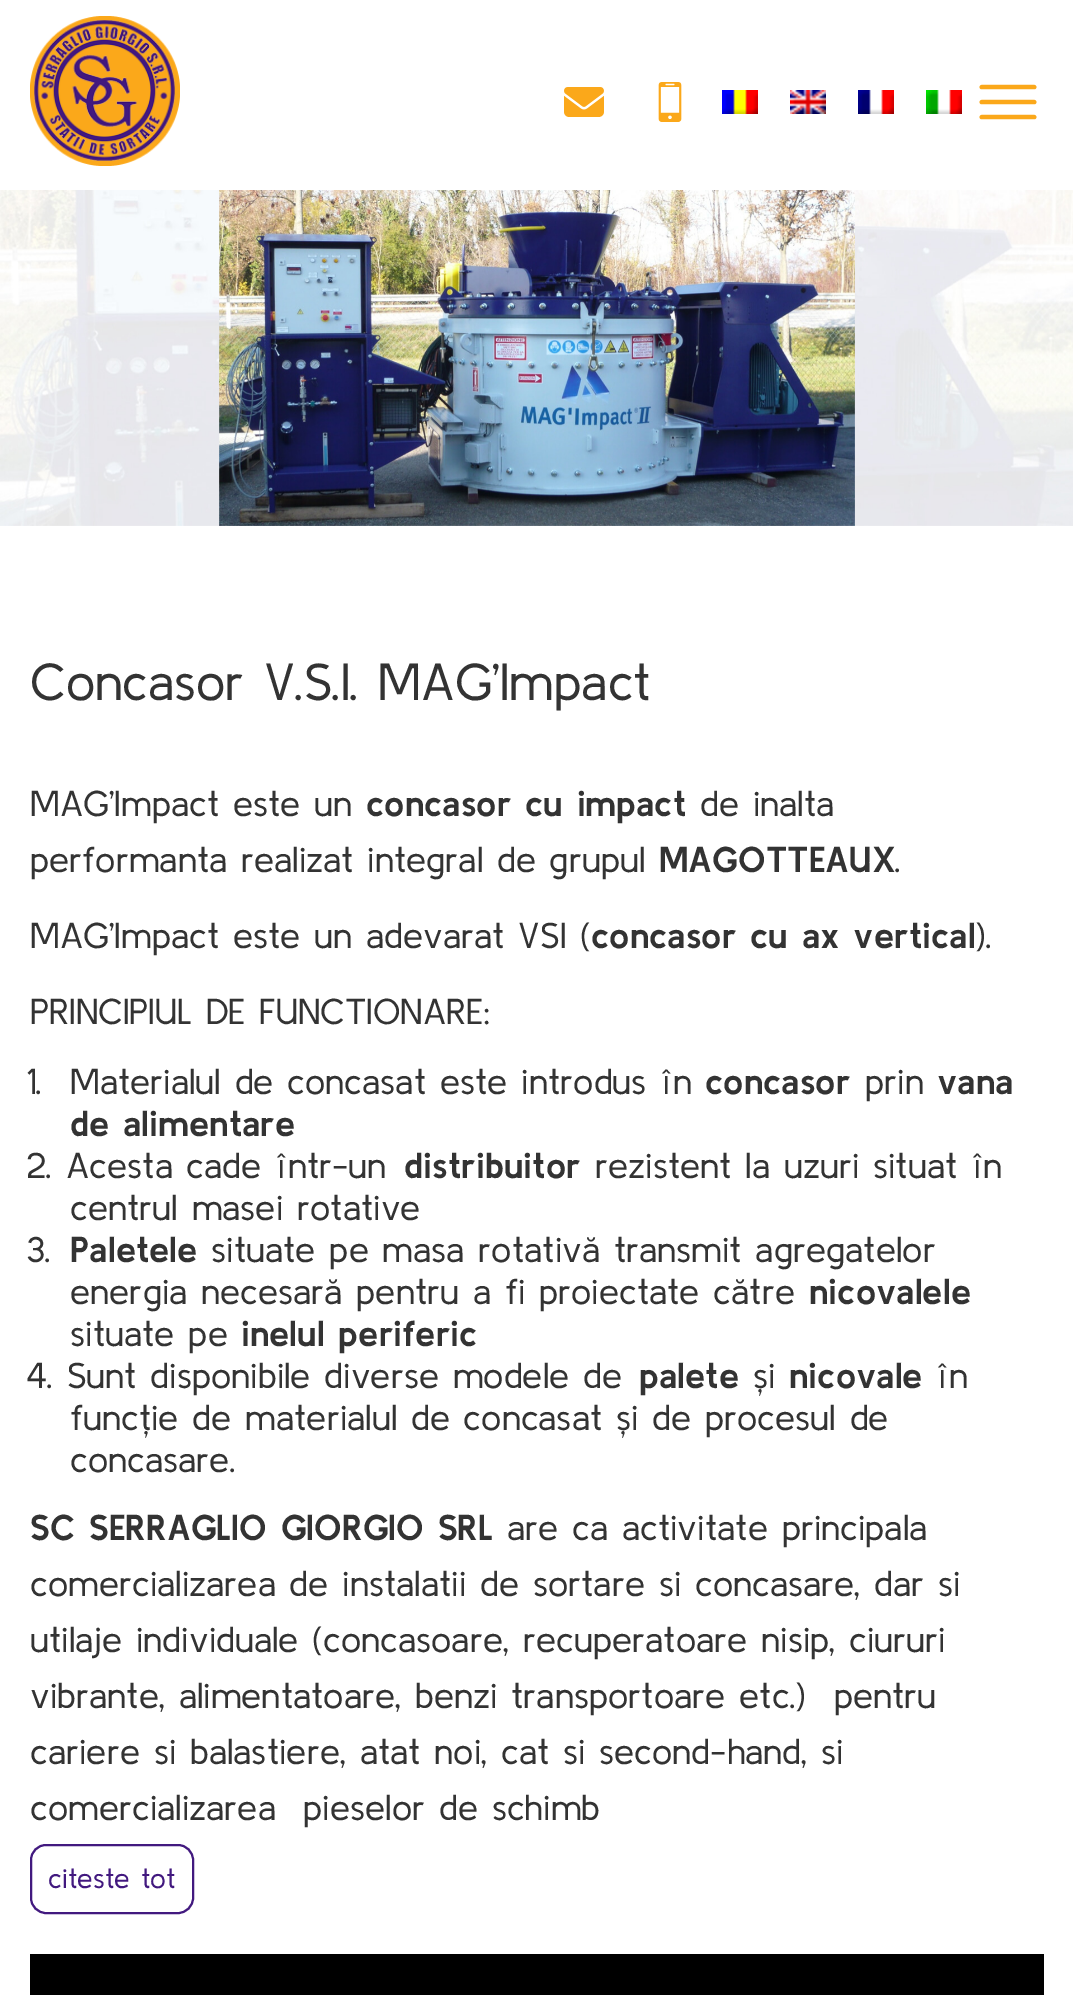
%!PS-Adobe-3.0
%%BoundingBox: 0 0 1073 1995
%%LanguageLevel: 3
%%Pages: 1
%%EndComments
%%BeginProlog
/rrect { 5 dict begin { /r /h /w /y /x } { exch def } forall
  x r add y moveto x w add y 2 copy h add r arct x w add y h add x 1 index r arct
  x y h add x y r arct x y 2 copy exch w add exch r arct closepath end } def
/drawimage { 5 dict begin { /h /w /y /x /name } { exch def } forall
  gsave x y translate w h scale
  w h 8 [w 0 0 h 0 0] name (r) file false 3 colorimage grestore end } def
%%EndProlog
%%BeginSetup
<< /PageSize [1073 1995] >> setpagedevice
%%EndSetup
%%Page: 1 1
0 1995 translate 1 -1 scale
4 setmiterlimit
1 setgray
0 0 1073 1995 rectfill
(images/1.raw) 30 16 150 150 drawimage
(images/2.raw) 564 87 40 30 drawimage
(images/3.raw) 658 82 24 40 drawimage
(images/4.raw) 722 90 36 24 drawimage
(images/5.raw) 790 90 36 24 drawimage
(images/6.raw) 858 90 36 24 drawimage
(images/7.raw) 926 90 36 24 drawimage
(images/8.raw) 979 84 58 36 drawimage
(images/9.raw) 0 190 1073 336 drawimage
0.259 0.098 0.498 setrgbcolor
2 setlinewidth
31 1845 162 68 15 rrect stroke
0 setgray
30 1954 1014 41 rectfill
/KulimPark-Regular [52 0 0 -52 0 0] selectfont
0.2 setgray
30 700 moveto (Concasor V.S.I. MAG’Impact) show
/KulimPark-Regular [36 0 0 -36 0 0] selectfont
30 816 moveto (MAG’Impact este un) show
/KulimPark-Bold [36 0 0 -36 0 0] selectfont
366 816 moveto (concasor cu impact) show
/KulimPark-Regular [36 0 0 -36 0 0] selectfont
700 816 moveto (de inalta) show
30 872 moveto (performanta realizat integral de grupul) show
/KulimPark-Bold [36 0 0 -36 0 0] selectfont
659 872 moveto (MAGOTTEAUX) show
/KulimPark-Regular [36 0 0 -36 0 0] selectfont
895 872 moveto (.) show
30 948 moveto (MAG’Impact este un adevarat VSI \() show
/KulimPark-Bold [36 0 0 -36 0 0] selectfont
591 948 moveto (concasor cu ax vertical) show
/KulimPark-Regular [36 0 0 -36 0 0] selectfont
975 948 moveto (\).) show
30 1024 moveto (PRINCIPIUL DE FUNCTIONARE:) show
26 1094 moveto (1.) show
70 1094 moveto (Materialul de concasat este introdus în) show
/KulimPark-Bold [36 0 0 -36 0 0] selectfont
705 1094 moveto (concasor) show
/KulimPark-Regular [36 0 0 -36 0 0] selectfont
865 1094 moveto (prin) show
/KulimPark-Bold [36 0 0 -36 0 0] selectfont
937 1094 moveto (vana) show
70 1136 moveto (de alimentare) show
/KulimPark-Regular [36 0 0 -36 0 0] selectfont
26 1178 moveto (2. Acesta cade într-un) show
/KulimPark-Bold [36 0 0 -36 0 0] selectfont
404 1178 moveto (distribuitor) show
/KulimPark-Regular [36 0 0 -36 0 0] selectfont
595 1178 moveto (rezistent la uzuri situat în) show
70 1220 moveto (centrul masei rotative) show
26 1262 moveto (3.) show
/KulimPark-Bold [36 0 0 -36 0 0] selectfont
70 1262 moveto (Paletele) show
/KulimPark-Regular [36 0 0 -36 0 0] selectfont
211 1262 moveto (situate pe masa rotativă transmit agregatelor) show
70 1304 moveto (energia necesară pentru a fi proiectate către) show
/KulimPark-Bold [36 0 0 -36 0 0] selectfont
809 1304 moveto (nicovalele) show
/KulimPark-Regular [36 0 0 -36 0 0] selectfont
70 1346 moveto (situate pe) show
/KulimPark-Bold [36 0 0 -36 0 0] selectfont
241 1346 moveto (inelul periferic) show
/KulimPark-Regular [36 0 0 -36 0 0] selectfont
26 1388 moveto (4. Sunt disponibile diverse modele de) show
/KulimPark-Bold [36 0 0 -36 0 0] selectfont
639 1388 moveto (palete) show
/KulimPark-Regular [36 0 0 -36 0 0] selectfont
753 1388 moveto (și) show
/KulimPark-Bold [36 0 0 -36 0 0] selectfont
789 1388 moveto (nicovale) show
/KulimPark-Regular [36 0 0 -36 0 0] selectfont
936 1388 moveto (în) show
70 1430 moveto (funcție de materialul de concasat și de procesul de) show
70 1472 moveto (concasare.) show
/KulimPark-Bold [36 0 0 -36 0 0] selectfont
30 1540 moveto (SC SERRAGLIO GIORGIO SRL) show
/KulimPark-Regular [36 0 0 -36 0 0] selectfont
507 1540 moveto (are ca activitate principala) show
30 1596 moveto (comercializarea de instalatii de sortare si concasare, dar si) show
30 1652 moveto (utilaje individuale \(concasoare, recuperatoare nisip, ciururi) show
30 1708 moveto (vibrante, alimentatoare, benzi transportoare etc.\)  pentru) show
30 1764 moveto (cariere si balastiere, atat noi, cat si second-hand, si) show
30 1820 moveto (comercializarea  pieselor de schimb) show
/KulimPark-Regular [28 0 0 -28 0 0] selectfont
0.259 0.098 0.498 setrgbcolor
48 1888 moveto (citeste tot) show
showpage
%%EOF
